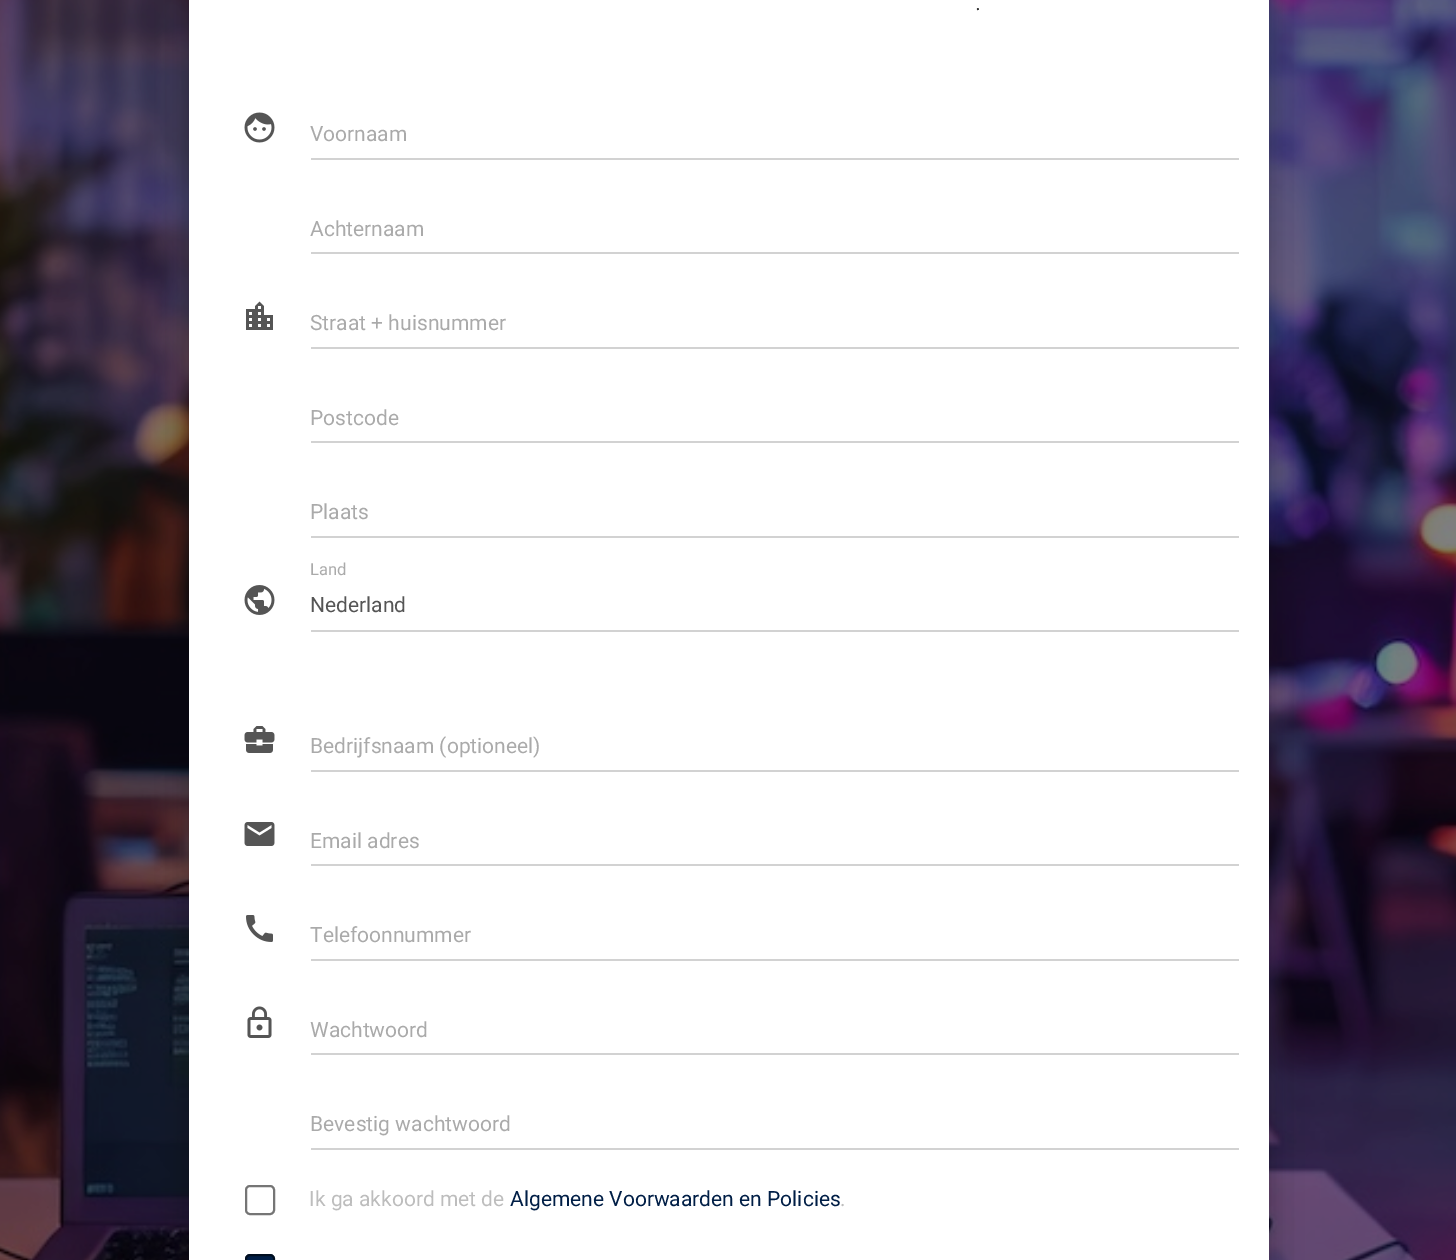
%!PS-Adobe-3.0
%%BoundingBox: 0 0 1456 1260
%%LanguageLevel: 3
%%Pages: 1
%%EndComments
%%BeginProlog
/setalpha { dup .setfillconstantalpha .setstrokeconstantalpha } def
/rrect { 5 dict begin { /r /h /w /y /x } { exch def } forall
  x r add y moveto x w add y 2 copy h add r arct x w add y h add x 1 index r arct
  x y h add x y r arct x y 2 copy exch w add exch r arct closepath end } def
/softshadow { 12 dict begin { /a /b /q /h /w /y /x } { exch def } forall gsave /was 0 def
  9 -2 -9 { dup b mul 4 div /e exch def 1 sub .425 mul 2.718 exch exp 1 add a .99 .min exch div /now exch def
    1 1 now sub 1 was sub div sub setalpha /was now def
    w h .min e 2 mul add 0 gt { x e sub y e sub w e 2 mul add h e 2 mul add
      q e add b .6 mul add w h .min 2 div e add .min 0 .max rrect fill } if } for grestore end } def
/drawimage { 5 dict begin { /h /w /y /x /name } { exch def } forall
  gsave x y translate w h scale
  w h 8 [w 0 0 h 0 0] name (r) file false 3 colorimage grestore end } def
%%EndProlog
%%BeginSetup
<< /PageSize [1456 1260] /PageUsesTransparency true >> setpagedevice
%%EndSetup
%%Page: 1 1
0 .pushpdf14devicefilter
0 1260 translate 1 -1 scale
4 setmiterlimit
1 setgray
0 0 1456 1260 rectfill
(images/1.raw) 0 0 1456 1260 drawimage
0 setgray
197 -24 1065 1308 1.5 7.5 0.2 softshadow
182 -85 1095 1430 17 22.5 0.12 softshadow
186 -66 1086 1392 12 18 0.14 softshadow
1 setgray
189 0 1080 1260 rectfill
(images/2.raw) 244 112 31 31 drawimage
0.824 setgray
311 158 928 2 rectfill
311 252 928 2 rectfill
(images/3.raw) 246 301 27 29 drawimage
311 347 928 2 rectfill
311 441 928 2 rectfill
311 536 928 2 rectfill
(images/4.raw) 244 585 31 30 drawimage
311 630 928 2 rectfill
(images/5.raw) 244 726 31 27 drawimage
311 770 928 2 rectfill
(images/6.raw) 244 822 31 24 drawimage
311 864 928 2 rectfill
(images/7.raw) 246 915 27 27 drawimage
311 959 928 2 rectfill
(images/8.raw) 247 1006 25 32 drawimage
311 1053 928 2 rectfill
311 1148 928 2 rectfill
0.459 setgray
2 setlinewidth
246 1186 28 28 4 rrect stroke
0 0.118 0.275 setrgbcolor
245 1254 30 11 5 rrect fill
0.54 setalpha
0 setgray
246 1255 28 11 4 rrect stroke
/Roboto-Light [26 0 0 -26 0 0] selectfont
1 setalpha
0.129 setgray
975 10 moveto (.) show
/Roboto-Regular [21 0 0 -21 0 0] selectfont
0.667 setgray
310 141 moveto (Voornaam) show
310 236 moveto (Achternaam) show
310 330 moveto (Straat + huisnummer) show
310 425 moveto (Postcode) show
310 519 moveto (Plaats) show
/Roboto-Regular [16.5 0 0 -16.5 0 0] selectfont
310 575 moveto (Land) show
/Roboto-Regular [21 0 0 -21 0 0] selectfont
0.333 setgray
310 612 moveto (Nederland) show
0.667 setgray
310 753 moveto (Bedrijfsnaam \(optioneel\)) show
310 848 moveto (Email adres) show
310 942 moveto (Telefoonnummer) show
310 1037 moveto (Wachtwoord) show
310 1131 moveto (Bevestig wachtwoord) show
0.741 setgray
309 1206 moveto (Ik ga akkoord met de) show
0 0.118 0.275 setrgbcolor
510 1206 moveto (Algemene Voorwaarden en Policies) show
0.741 setgray
840 1206 moveto (.) show
.poppdf14devicefilter showpage
%%EOF
